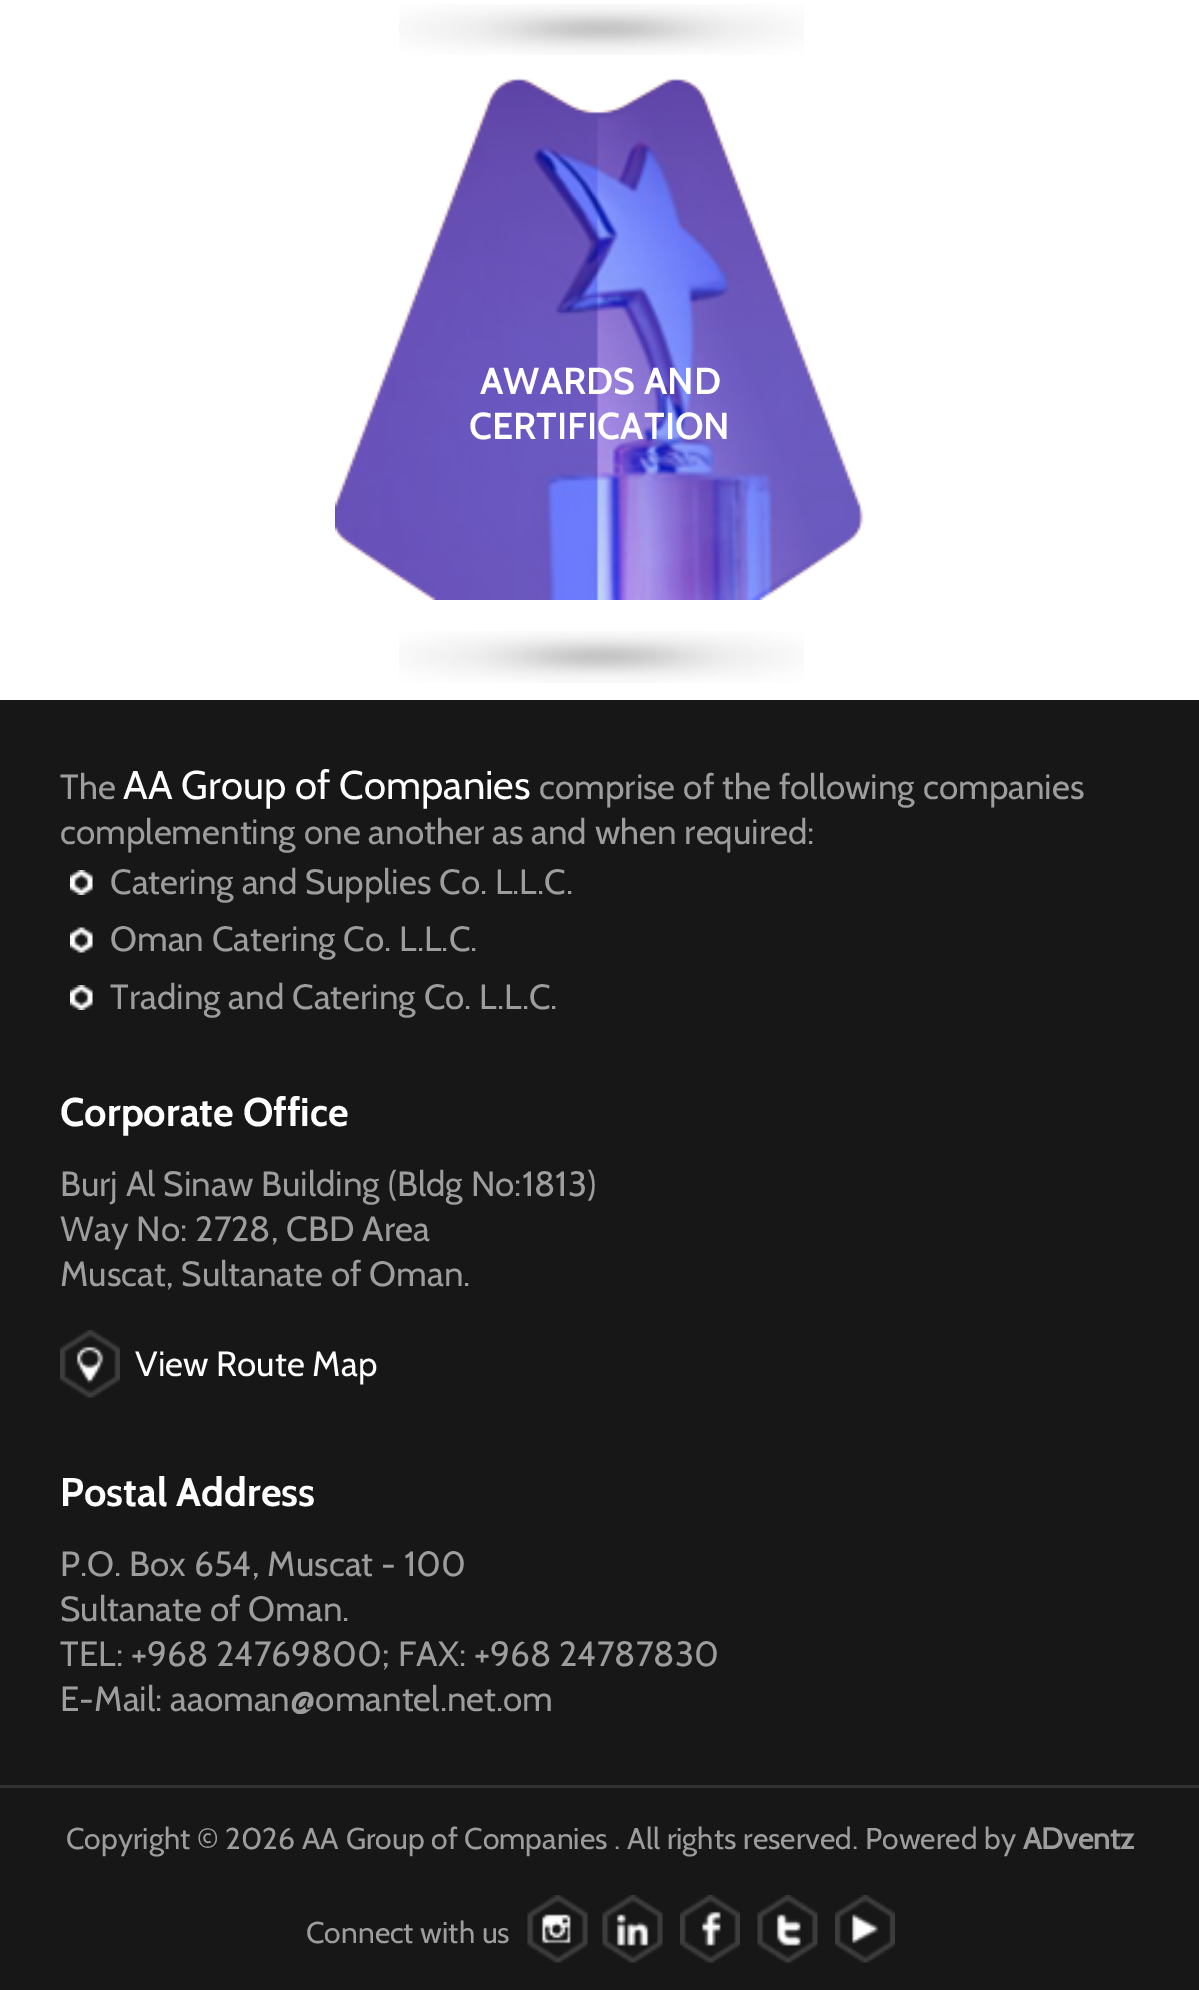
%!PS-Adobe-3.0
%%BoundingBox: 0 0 1199 1990
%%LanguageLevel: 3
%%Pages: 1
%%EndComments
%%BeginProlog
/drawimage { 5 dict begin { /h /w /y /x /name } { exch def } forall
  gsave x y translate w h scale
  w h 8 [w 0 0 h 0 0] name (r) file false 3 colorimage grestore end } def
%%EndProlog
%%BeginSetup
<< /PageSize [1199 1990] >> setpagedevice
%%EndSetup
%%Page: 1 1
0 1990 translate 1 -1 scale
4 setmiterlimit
1 setgray
0 0 1199 1990 rectfill
(images/1.raw) 399 4 405 51 drawimage
(images/2.raw) 399 631 405 52 drawimage
(images/3.raw) 335 77 529 523 drawimage
0.09 setgray
0 700 1199 1085 rectfill
(images/4.raw) 70 870 23 25 drawimage
(images/5.raw) 70 927 23 26 drawimage
(images/4.raw) 70 985 23 25 drawimage
(images/6.raw) 60 1330 60 68 drawimage
0 1788 1199 202 rectfill
0.192 setgray
0 1785 1199 3 rectfill
(images/7.raw) 527 1895 61 68 drawimage
(images/8.raw) 602 1895 61 68 drawimage
(images/9.raw) 680 1895 60 68 drawimage
(images/10.raw) 757 1895 61 68 drawimage
(images/11.raw) 835 1895 60 68 drawimage
/Cabin-SemiBold [37.5 0 0 -37.5 0 0] selectfont
1 setgray
480 394 moveto (AWARDS AND) show
469 439 moveto (CERTIFICATION) show
/Cabin-Regular [35 0 0 -35 0 0] selectfont
0.616 setgray
60 799 moveto (The) show
/Cabin-Regular [40 0 0 -40 0 0] selectfont
1 setgray
123 799 moveto (AA Group of Companies) show
/Cabin-Regular [35 0 0 -35 0 0] selectfont
0.616 setgray
539 799 moveto (comprise of the following companies) show
60 844 moveto (complementing one another as and when required:) show
110 894 moveto (Catering and Supplies Co. L.L.C.) show
110 951 moveto (Oman Catering Co. L.L.C.) show
110 1009 moveto (Trading and Catering Co. L.L.C.) show
/Cabin-Bold [40 0 0 -40 0 0] selectfont
1 setgray
60 1126 moveto (Corporate Office) show
/Cabin-Regular [35 0 0 -35 0 0] selectfont
0.616 setgray
60 1196 moveto (Burj Al Sinaw Building \(Bldg No:1813\)) show
60 1241 moveto (Way No: 2728, CBD Area) show
60 1286 moveto (Muscat, Sultanate of Oman.) show
1 setgray
135 1376 moveto (View Route Map) show
/Cabin-Bold [40 0 0 -40 0 0] selectfont
60 1506 moveto (Postal Address) show
/Cabin-Regular [35 0 0 -35 0 0] selectfont
0.616 setgray
60 1576 moveto (P.O. Box 654, Muscat - 100) show
60 1621 moveto (Sultanate of Oman.) show
60 1666 moveto (TEL: +968 24769800; FAX: +968 24787830) show
60 1711 moveto (E-Mail: aaoman@omantel.net.om) show
/Cabin-Regular [30 0 0 -30 0 0] selectfont
66 1849 moveto (Copyright © 2026 AA Group of Companies . All rights reserved. Powered by) show
/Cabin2-Bold [30 0 0 -30 0 0] selectfont
1023 1849 moveto (ADventz) show
/Cabin-Regular [30 0 0 -30 0 0] selectfont
306 1943 moveto (Connect with us) show
showpage
%%EOF
